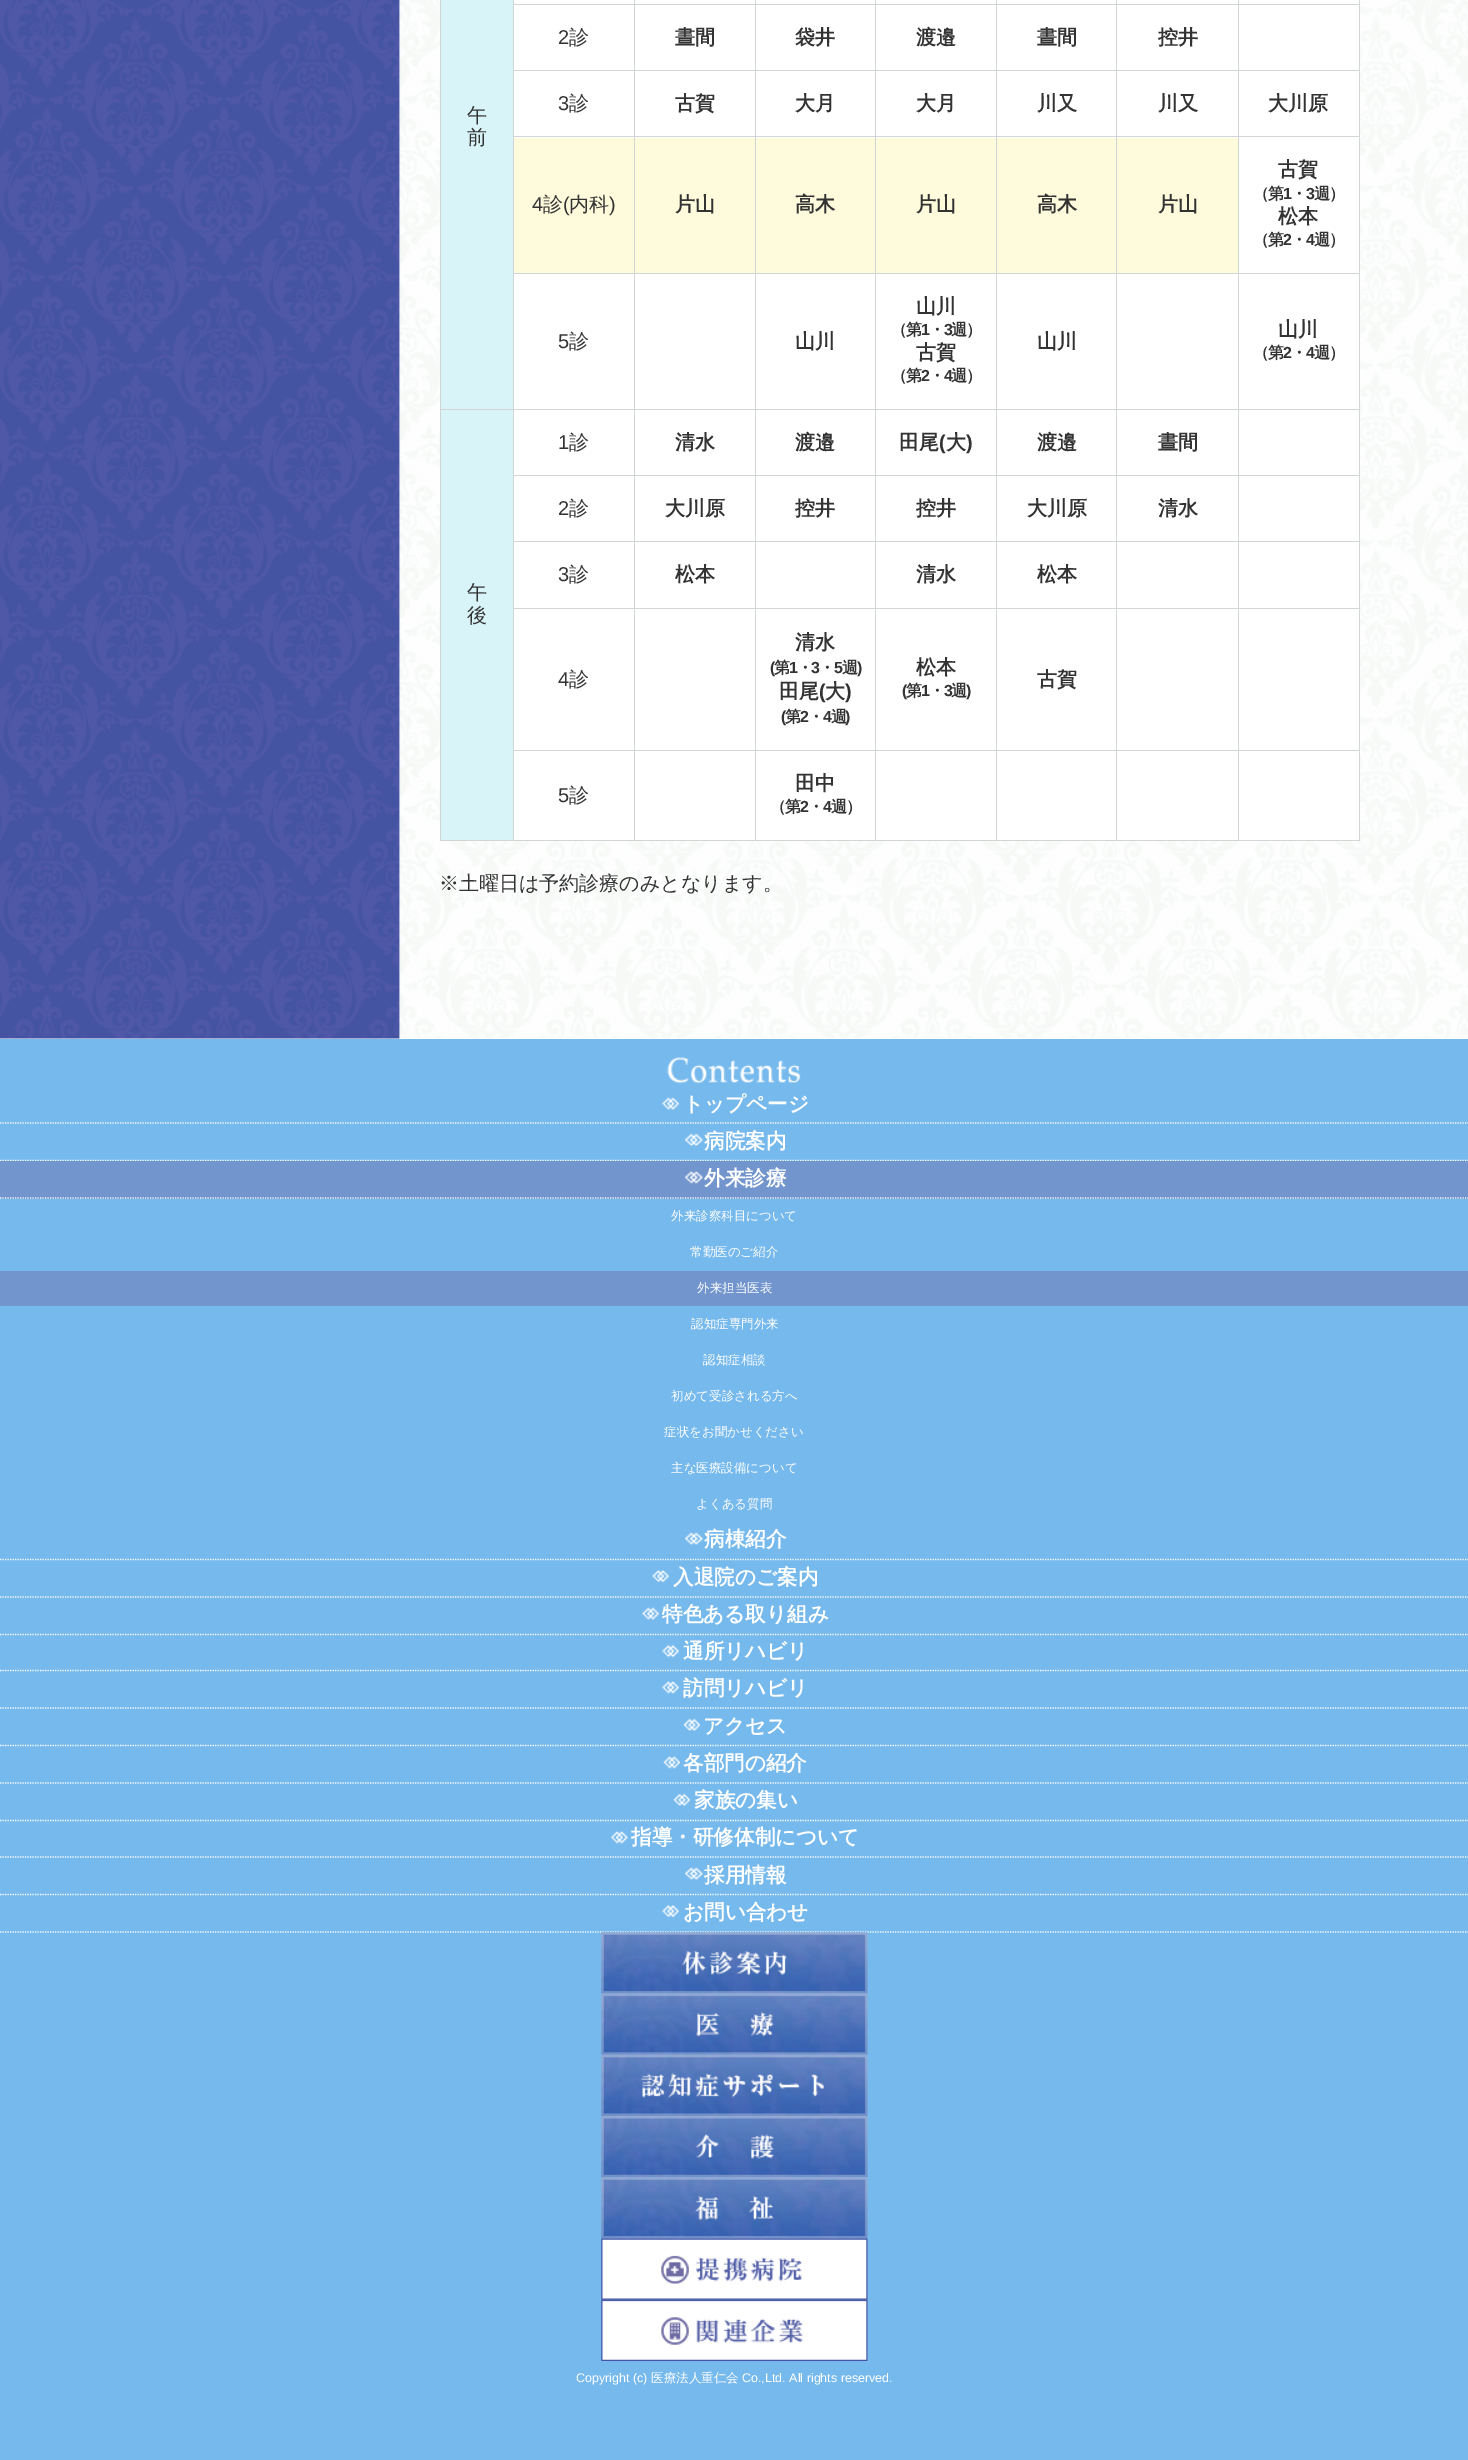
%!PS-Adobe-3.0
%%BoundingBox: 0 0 1468 2460
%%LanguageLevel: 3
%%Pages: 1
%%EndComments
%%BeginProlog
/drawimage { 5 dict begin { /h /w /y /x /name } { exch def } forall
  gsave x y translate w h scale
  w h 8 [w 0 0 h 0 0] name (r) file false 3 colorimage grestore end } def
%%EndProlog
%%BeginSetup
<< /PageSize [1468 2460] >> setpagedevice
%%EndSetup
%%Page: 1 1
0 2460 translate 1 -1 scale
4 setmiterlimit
1 setgray
0 0 1468 2460 rectfill
(images/1.raw) 0 0 1468 1039 drawimage
514 5 120 65 rectfill
0.824 0.835 0.839 setrgbcolor
1238 4 122 1 rectfill
1238 70 122 1 rectfill
1 setgray
997 71 241 67 rectfill
1239 71 120 202 rectfill
0.824 0.835 0.839 setrgbcolor
1238 136 122 1 rectfill
1238 273 122 1 rectfill
1238 409 122 1 rectfill
1238 475 122 1 rectfill
1 setgray
997 476 241 67 rectfill
1239 476 120 132 rectfill
0.824 0.835 0.839 setrgbcolor
1238 541 122 1 rectfill
1238 608 122 1 rectfill
1238 750 122 1 rectfill
1359 750 1 91 rectfill
1238 840 122 1 rectfill
1238 750 1 91 rectfill
1116 750 123 1 rectfill
1238 608 1 143 rectfill
1116 608 123 1 rectfill
1238 541 1 68 rectfill
1116 541 123 1 rectfill
1238 475 1 68 rectfill
1116 475 123 1 rectfill
1238 409 1 67 rectfill
1116 409 123 1 rectfill
1238 273 1 137 rectfill
1116 273 123 1 rectfill
1238 136 1 138 rectfill
1116 136 123 1 rectfill
1238 70 1 68 rectfill
1116 70 123 1 rectfill
1238 4 1 67 rectfill
1116 4 123 1 rectfill
1 setgray
997 5 241 65 rectfill
0.992 0.984 0.859 setrgbcolor
997 138 241 135 rectfill
1 setgray
997 274 241 135 rectfill
997 410 241 65 rectfill
997 543 241 65 rectfill
997 609 241 141 rectfill
997 751 241 89 rectfill
0.824 0.835 0.839 setrgbcolor
1116 840 123 1 rectfill
1116 750 1 91 rectfill
996 750 122 1 rectfill
1116 608 1 143 rectfill
996 608 122 1 rectfill
1116 541 1 68 rectfill
996 541 122 1 rectfill
1116 475 1 68 rectfill
996 475 122 1 rectfill
1116 409 1 67 rectfill
996 409 122 1 rectfill
1116 273 1 137 rectfill
996 273 122 1 rectfill
1116 136 1 138 rectfill
996 136 122 1 rectfill
1116 70 1 68 rectfill
996 70 122 1 rectfill
1116 4 1 67 rectfill
996 4 122 1 rectfill
1 setgray
876 71 120 67 rectfill
876 476 120 132 rectfill
0.824 0.835 0.839 setrgbcolor
996 840 122 1 rectfill
996 750 1 91 rectfill
875 750 123 1 rectfill
996 608 1 143 rectfill
875 608 123 1 rectfill
996 541 1 68 rectfill
875 541 123 1 rectfill
996 475 1 68 rectfill
875 475 123 1 rectfill
996 409 1 67 rectfill
875 409 123 1 rectfill
996 273 1 137 rectfill
875 273 123 1 rectfill
996 136 1 138 rectfill
875 136 123 1 rectfill
996 70 1 68 rectfill
875 70 123 1 rectfill
996 4 1 67 rectfill
875 4 123 1 rectfill
1 setgray
756 71 119 67 rectfill
756 476 119 132 rectfill
0.824 0.835 0.839 setrgbcolor
875 840 123 1 rectfill
875 750 1 91 rectfill
755 750 121 1 rectfill
875 608 1 143 rectfill
755 608 121 1 rectfill
875 541 1 68 rectfill
755 541 121 1 rectfill
875 475 1 68 rectfill
755 475 121 1 rectfill
875 409 1 67 rectfill
755 409 121 1 rectfill
875 273 1 137 rectfill
755 273 121 1 rectfill
875 136 1 138 rectfill
755 136 121 1 rectfill
875 70 1 68 rectfill
755 70 121 1 rectfill
875 4 1 67 rectfill
755 4 121 1 rectfill
1 setgray
635 71 120 67 rectfill
635 476 120 132 rectfill
0.824 0.835 0.839 setrgbcolor
755 840 121 1 rectfill
755 750 1 91 rectfill
634 750 122 1 rectfill
755 608 1 143 rectfill
634 608 122 1 rectfill
755 541 1 68 rectfill
634 541 122 1 rectfill
755 475 1 68 rectfill
634 475 122 1 rectfill
755 409 1 67 rectfill
634 409 122 1 rectfill
755 273 1 137 rectfill
634 273 122 1 rectfill
755 136 1 138 rectfill
634 136 122 1 rectfill
755 70 1 68 rectfill
634 70 122 1 rectfill
755 4 1 67 rectfill
634 4 122 1 rectfill
1 setgray
514 71 120 67 rectfill
514 476 120 132 rectfill
0.824 0.835 0.839 setrgbcolor
634 840 122 1 rectfill
634 750 1 91 rectfill
513 750 122 1 rectfill
634 608 1 143 rectfill
513 608 122 1 rectfill
634 541 1 68 rectfill
513 541 122 1 rectfill
634 475 1 68 rectfill
513 475 122 1 rectfill
634 409 1 67 rectfill
513 409 122 1 rectfill
634 273 1 137 rectfill
513 273 122 1 rectfill
634 136 1 138 rectfill
513 136 122 1 rectfill
634 70 1 68 rectfill
513 70 122 1 rectfill
634 4 1 67 rectfill
513 4 122 1 rectfill
513 840 122 1 rectfill
513 750 1 91 rectfill
513 608 1 143 rectfill
513 541 1 68 rectfill
513 475 1 68 rectfill
513 409 1 67 rectfill
513 273 1 137 rectfill
513 136 1 138 rectfill
513 70 1 68 rectfill
513 0 1 71 rectfill
1 setgray
635 5 120 65 rectfill
756 5 119 65 rectfill
876 5 120 65 rectfill
1239 5 120 65 rectfill
0.824 0.835 0.839 setrgbcolor
1359 608 1 143 rectfill
1359 541 1 68 rectfill
1359 475 1 68 rectfill
1359 409 1 67 rectfill
1359 273 1 137 rectfill
1359 136 1 138 rectfill
1359 70 1 68 rectfill
1359 0 1 71 rectfill
1 setgray
514 0 845 4 rectfill
0.824 0.835 0.839 setrgbcolor
634 0 1 5 rectfill
755 0 1 5 rectfill
875 0 1 5 rectfill
996 0 1 5 rectfill
1116 0 1 5 rectfill
1238 0 1 5 rectfill
0.851 0.957 0.976 setrgbcolor
441 0 72 409 rectfill
0.992 0.984 0.859 setrgbcolor
514 138 120 135 rectfill
635 138 120 135 rectfill
756 138 119 135 rectfill
876 138 120 135 rectfill
0.824 0.835 0.839 setrgbcolor
440 840 74 1 rectfill
440 409 1 432 rectfill
440 409 74 1 rectfill
440 0 1 410 rectfill
1 setgray
514 274 120 135 rectfill
635 274 120 135 rectfill
756 274 119 135 rectfill
876 274 120 135 rectfill
1239 274 120 135 rectfill
514 410 120 65 rectfill
635 410 120 65 rectfill
756 410 119 65 rectfill
876 410 120 65 rectfill
1239 410 120 65 rectfill
0.851 0.957 0.976 setrgbcolor
441 410 72 430 rectfill
1 setgray
514 609 120 141 rectfill
635 609 120 141 rectfill
756 609 119 141 rectfill
876 609 120 141 rectfill
1239 609 120 141 rectfill
635 751 120 89 rectfill
876 751 120 89 rectfill
514 751 120 89 rectfill
756 751 119 89 rectfill
1239 751 120 89 rectfill
0.463 0.725 0.929 setrgbcolor
0 1039 1468 1421 rectfill
(images/2.raw) 667 1057 134 27 drawimage
1 setgray
1.2 setlinewidth
[1.25 1.25] 0 setdash
newpath 0 1123 moveto 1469 1123 lineto stroke
(images/3.raw) 662 1097 17 13 drawimage
newpath 0 1160.5 moveto 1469 1160.5 lineto stroke
(images/4.raw) 685 1133 18 13 drawimage
0.443 0.584 0.8 setrgbcolor
0 1161 1468 38 rectfill
1 setgray
newpath 0 1198 moveto 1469 1198 lineto stroke
(images/5.raw) 685 1171 18 13 drawimage
0.443 0.584 0.8 setrgbcolor
0 1271 1468 35 rectfill
1 setgray
newpath 0 1559.5 moveto 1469 1559.5 lineto stroke
(images/6.raw) 685 1532 18 13 drawimage
newpath 0 1597 moveto 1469 1597 lineto stroke
(images/7.raw) 652 1569 17 14 drawimage
newpath 0 1634.5 moveto 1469 1634.5 lineto stroke
(images/3.raw) 642 1607 17 13 drawimage
newpath 0 1670.5 moveto 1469 1670.5 lineto stroke
(images/7.raw) 662 1644 17 14 drawimage
newpath 0 1708 moveto 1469 1708 lineto stroke
(images/8.raw) 662 1681 17 13 drawimage
newpath 0 1745.5 moveto 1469 1745.5 lineto stroke
(images/9.raw) 683 1718 17 13 drawimage
newpath 0 1783 moveto 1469 1783 lineto stroke
(images/10.raw) 663 1756 17 13 drawimage
newpath 0 1820.5 moveto 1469 1820.5 lineto stroke
(images/9.raw) 673 1793 17 13 drawimage
newpath 0 1857 moveto 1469 1857 lineto stroke
(images/11.raw) 611 1831 17 13 drawimage
newpath 0 1894.5 moveto 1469 1894.5 lineto stroke
(images/6.raw) 685 1867 18 13 drawimage
newpath 0 1932 moveto 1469 1932 lineto stroke
(images/7.raw) 662 1904 17 14 drawimage
(images/12.raw) 601 1932 267 62 drawimage
(images/13.raw) 601 1993 267 62 drawimage
(images/14.raw) 601 2054 267 62 drawimage
(images/15.raw) 601 2116 267 62 drawimage
(images/16.raw) 601 2177 267 62 drawimage
(images/17.raw) 601 2238 267 62 drawimage
(images/18.raw) 601 2299 267 62 drawimage
/LiberationSans-Regular [20 0 0 -20 0 0] selectfont
0.2 setgray
558 44 moveto (2) show
/WenQuanYiZenHei-Medium [20 0 0 -20 0 0] selectfont
569 44 moveto (診) show
/WenQuanYiZenHei-Bold [20 0 0 -20 0 0] selectfont
675 44 moveto (晝間) show
795 44 moveto (袋井) show
916 44 moveto (渡邉) show
1037 44 moveto (晝間) show
1158 44 moveto (控井) show
/WenQuanYiZenHei-Medium [20 0 0 -20 0 0] selectfont
467 122 moveto (午) show
467 144 moveto (前) show
/LiberationSans-Regular [20 0 0 -20 0 0] selectfont
558 110 moveto (3) show
/WenQuanYiZenHei-Medium [20 0 0 -20 0 0] selectfont
569 110 moveto (診) show
/WenQuanYiZenHei-Bold [20 0 0 -20 0 0] selectfont
675 110 moveto (古賀) show
795 110 moveto (大月) show
916 110 moveto (大月) show
1037 110 moveto (川又) show
1158 110 moveto (川又) show
1268 110 moveto (大川原) show
/LiberationSans-Regular [20 0 0 -20 0 0] selectfont
532 211 moveto (4) show
/WenQuanYiZenHei-Medium [20 0 0 -20 0 0] selectfont
543 211 moveto (診) show
/LiberationSans-Regular [20 0 0 -20 0 0] selectfont
563 211 moveto (\() show
/WenQuanYiZenHei-Medium [20 0 0 -20 0 0] selectfont
569 211 moveto (内科) show
/LiberationSans-Regular [20 0 0 -20 0 0] selectfont
609 211 moveto (\)) show
/WenQuanYiZenHei-Bold [20 0 0 -20 0 0] selectfont
675 211 moveto (片山) show
795 211 moveto (高木) show
916 211 moveto (片山) show
1037 211 moveto (高木) show
1158 211 moveto (片山) show
1278 176 moveto (古賀) show
/WenQuanYiZenHei-Bold [16 0 0 -16 0 0] selectfont
1253 199 moveto -1 0 (（第) ashow
/LiberationSans-Bold [16 0 0 -16 0 0] selectfont
1283 199 moveto -1 0 (1) ashow
/WenQuanYiZenHei-Bold [16 0 0 -16 0 0] selectfont
1291 199 moveto -1 0 (・) ashow
/LiberationSans-Bold [16 0 0 -16 0 0] selectfont
1306 199 moveto -1 0 (3) ashow
/WenQuanYiZenHei-Bold [16 0 0 -16 0 0] selectfont
1314 199 moveto -1 0 (週）) ashow
/WenQuanYiZenHei-Bold [20 0 0 -20 0 0] selectfont
1278 223 moveto (松本) show
/WenQuanYiZenHei-Bold [16 0 0 -16 0 0] selectfont
1253 245 moveto -1 0 (（第) ashow
/LiberationSans-Bold [16 0 0 -16 0 0] selectfont
1283 245 moveto -1 0 (2) ashow
/WenQuanYiZenHei-Bold [16 0 0 -16 0 0] selectfont
1291 245 moveto -1 0 (・) ashow
/LiberationSans-Bold [16 0 0 -16 0 0] selectfont
1306 245 moveto -1 0 (4) ashow
/WenQuanYiZenHei-Bold [16 0 0 -16 0 0] selectfont
1314 245 moveto -1 0 (週）) ashow
/LiberationSans-Regular [20 0 0 -20 0 0] selectfont
558 348 moveto (5) show
/WenQuanYiZenHei-Medium [20 0 0 -20 0 0] selectfont
569 348 moveto (診) show
/WenQuanYiZenHei-Bold [20 0 0 -20 0 0] selectfont
795 348 moveto (山川) show
916 313 moveto (山川) show
/WenQuanYiZenHei-Bold [16 0 0 -16 0 0] selectfont
891 335 moveto -1 0 (（第) ashow
/LiberationSans-Bold [16 0 0 -16 0 0] selectfont
921 335 moveto -1 0 (1) ashow
/WenQuanYiZenHei-Bold [16 0 0 -16 0 0] selectfont
929 335 moveto -1 0 (・) ashow
/LiberationSans-Bold [16 0 0 -16 0 0] selectfont
944 335 moveto -1 0 (3) ashow
/WenQuanYiZenHei-Bold [16 0 0 -16 0 0] selectfont
951 335 moveto -1 0 (週）) ashow
/WenQuanYiZenHei-Bold [20 0 0 -20 0 0] selectfont
916 359 moveto (古賀) show
/WenQuanYiZenHei-Bold [16 0 0 -16 0 0] selectfont
891 381 moveto -1 0 (（第) ashow
/LiberationSans-Bold [16 0 0 -16 0 0] selectfont
921 381 moveto -1 0 (2) ashow
/WenQuanYiZenHei-Bold [16 0 0 -16 0 0] selectfont
929 381 moveto -1 0 (・) ashow
/LiberationSans-Bold [16 0 0 -16 0 0] selectfont
944 381 moveto -1 0 (4) ashow
/WenQuanYiZenHei-Bold [16 0 0 -16 0 0] selectfont
951 381 moveto -1 0 (週）) ashow
/WenQuanYiZenHei-Bold [20 0 0 -20 0 0] selectfont
1037 348 moveto (山川) show
1278 336 moveto (山川) show
/WenQuanYiZenHei-Bold [16 0 0 -16 0 0] selectfont
1253 358 moveto -1 0 (（第) ashow
/LiberationSans-Bold [16 0 0 -16 0 0] selectfont
1283 358 moveto -1 0 (2) ashow
/WenQuanYiZenHei-Bold [16 0 0 -16 0 0] selectfont
1291 358 moveto -1 0 (・) ashow
/LiberationSans-Bold [16 0 0 -16 0 0] selectfont
1306 358 moveto -1 0 (4) ashow
/WenQuanYiZenHei-Bold [16 0 0 -16 0 0] selectfont
1314 358 moveto -1 0 (週）) ashow
/LiberationSans-Regular [20 0 0 -20 0 0] selectfont
558 449 moveto (1) show
/WenQuanYiZenHei-Medium [20 0 0 -20 0 0] selectfont
569 449 moveto (診) show
/WenQuanYiZenHei-Bold [20 0 0 -20 0 0] selectfont
675 449 moveto (清水) show
795 449 moveto (渡邉) show
899 449 moveto (田尾) show
/LiberationSans-Bold [20 0 0 -20 0 0] selectfont
939 449 moveto (\() show
/WenQuanYiZenHei-Bold [20 0 0 -20 0 0] selectfont
946 449 moveto (大) show
/LiberationSans-Bold [20 0 0 -20 0 0] selectfont
966 449 moveto (\)) show
/WenQuanYiZenHei-Bold [20 0 0 -20 0 0] selectfont
1037 449 moveto (渡邉) show
1158 449 moveto (晝間) show
/WenQuanYiZenHei-Medium [20 0 0 -20 0 0] selectfont
467 599 moveto (午) show
467 622 moveto (後) show
/LiberationSans-Regular [20 0 0 -20 0 0] selectfont
558 515 moveto (2) show
/WenQuanYiZenHei-Medium [20 0 0 -20 0 0] selectfont
569 515 moveto (診) show
/WenQuanYiZenHei-Bold [20 0 0 -20 0 0] selectfont
665 515 moveto (大川原) show
795 515 moveto (控井) show
916 515 moveto (控井) show
1027 515 moveto (大川原) show
1158 515 moveto (清水) show
/LiberationSans-Regular [20 0 0 -20 0 0] selectfont
558 581 moveto (3) show
/WenQuanYiZenHei-Medium [20 0 0 -20 0 0] selectfont
569 581 moveto (診) show
/WenQuanYiZenHei-Bold [20 0 0 -20 0 0] selectfont
675 581 moveto (松本) show
916 581 moveto (清水) show
1037 581 moveto (松本) show
/LiberationSans-Regular [20 0 0 -20 0 0] selectfont
558 686 moveto (4) show
/WenQuanYiZenHei-Medium [20 0 0 -20 0 0] selectfont
569 686 moveto (診) show
/WenQuanYiZenHei-Bold [20 0 0 -20 0 0] selectfont
795 649 moveto (清水) show
/LiberationSans-Bold [16 0 0 -16 0 0] selectfont
770 673 moveto -1 0 (\() ashow
/WenQuanYiZenHei-Bold [16 0 0 -16 0 0] selectfont
774 673 moveto -1 0 (第) ashow
/LiberationSans-Bold [16 0 0 -16 0 0] selectfont
789 673 moveto -1 0 (1) ashow
/WenQuanYiZenHei-Bold [16 0 0 -16 0 0] selectfont
797 673 moveto -1 0 (・) ashow
/LiberationSans-Bold [16 0 0 -16 0 0] selectfont
811 673 moveto -1 0 (3) ashow
/WenQuanYiZenHei-Bold [16 0 0 -16 0 0] selectfont
819 673 moveto -1 0 (・) ashow
/LiberationSans-Bold [16 0 0 -16 0 0] selectfont
834 673 moveto -1 0 (5) ashow
/WenQuanYiZenHei-Bold [16 0 0 -16 0 0] selectfont
842 673 moveto -1 0 (週) ashow
/LiberationSans-Bold [16 0 0 -16 0 0] selectfont
857 673 moveto -1 0 (\)) ashow
/WenQuanYiZenHei-Bold [20 0 0 -20 0 0] selectfont
779 698 moveto (田尾) show
/LiberationSans-Bold [20 0 0 -20 0 0] selectfont
819 698 moveto (\() show
/WenQuanYiZenHei-Bold [20 0 0 -20 0 0] selectfont
825 698 moveto (大) show
/LiberationSans-Bold [20 0 0 -20 0 0] selectfont
845 698 moveto (\)) show
/LiberationSans-Bold [16 0 0 -16 0 0] selectfont
781 722 moveto -1 0 (\() ashow
/WenQuanYiZenHei-Bold [16 0 0 -16 0 0] selectfont
785 722 moveto -1 0 (第) ashow
/LiberationSans-Bold [16 0 0 -16 0 0] selectfont
800 722 moveto -1 0 (2) ashow
/WenQuanYiZenHei-Bold [16 0 0 -16 0 0] selectfont
808 722 moveto -1 0 (・) ashow
/LiberationSans-Bold [16 0 0 -16 0 0] selectfont
823 722 moveto -1 0 (4) ashow
/WenQuanYiZenHei-Bold [16 0 0 -16 0 0] selectfont
831 722 moveto -1 0 (週) ashow
/LiberationSans-Bold [16 0 0 -16 0 0] selectfont
845 722 moveto -1 0 (\)) ashow
/WenQuanYiZenHei-Bold [20 0 0 -20 0 0] selectfont
916 674 moveto (松本) show
/LiberationSans-Bold [16 0 0 -16 0 0] selectfont
902 696 moveto -1 0 (\() ashow
/WenQuanYiZenHei-Bold [16 0 0 -16 0 0] selectfont
906 696 moveto -1 0 (第) ashow
/LiberationSans-Bold [16 0 0 -16 0 0] selectfont
921 696 moveto -1 0 (1) ashow
/WenQuanYiZenHei-Bold [16 0 0 -16 0 0] selectfont
929 696 moveto -1 0 (・) ashow
/LiberationSans-Bold [16 0 0 -16 0 0] selectfont
944 696 moveto -1 0 (3) ashow
/WenQuanYiZenHei-Bold [16 0 0 -16 0 0] selectfont
951 696 moveto -1 0 (週) ashow
/LiberationSans-Bold [16 0 0 -16 0 0] selectfont
966 696 moveto -1 0 (\)) ashow
/WenQuanYiZenHei-Bold [20 0 0 -20 0 0] selectfont
1037 686 moveto (古賀) show
/LiberationSans-Regular [20 0 0 -20 0 0] selectfont
558 802 moveto (5) show
/WenQuanYiZenHei-Medium [20 0 0 -20 0 0] selectfont
569 802 moveto (診) show
/WenQuanYiZenHei-Bold [20 0 0 -20 0 0] selectfont
795 790 moveto (田中) show
/WenQuanYiZenHei-Bold [16 0 0 -16 0 0] selectfont
770 812 moveto -1 0 (（第) ashow
/LiberationSans-Bold [16 0 0 -16 0 0] selectfont
800 812 moveto -1 0 (2) ashow
/WenQuanYiZenHei-Bold [16 0 0 -16 0 0] selectfont
808 812 moveto -1 0 (・) ashow
/LiberationSans-Bold [16 0 0 -16 0 0] selectfont
823 812 moveto -1 0 (4) ashow
/WenQuanYiZenHei-Bold [16 0 0 -16 0 0] selectfont
831 812 moveto -1 0 (週）) ashow
/WenQuanYiZenHei-Medium [20 0 0 -20 0 0] selectfont
439 890 moveto (※土曜日は予約診療のみとなります。) show
/WenQuanYiZenHei-Bold [20.6 0 0 -20.6 0 0] selectfont
1 setgray
683 1111 moveto (トップページ) show
704 1148 moveto (病院案内) show
704 1185 moveto (外来診療) show
/WenQuanYiZenHei-Medium [12.5 0 0 -12.5 0 0] selectfont
671 1220 moveto (外来診察科目について) show
690 1256 moveto (常勤医のご紹介) show
697 1292 moveto (外来担当医表) show
691 1328 moveto (認知症専門外来) show
703 1364 moveto (認知症相談) show
671 1400 moveto (初めて受診される方へ) show
664 1436 moveto (症状をお聞かせください) show
671 1472 moveto (主な医療設備について) show
696 1508 moveto (よくある質問) show
/WenQuanYiZenHei-Bold [20.6 0 0 -20.6 0 0] selectfont
704 1546 moveto (病棟紹介) show
673 1584 moveto (入退院のご案内) show
662 1621 moveto (特色ある取り組み) show
683 1658 moveto (通所リハビリ) show
683 1695 moveto (訪問リハビリ) show
703 1733 moveto (アクセス) show
683 1770 moveto (各部門の紹介) show
694 1807 moveto (家族の集い) show
631 1844 moveto (指導・研修体制について) show
704 1882 moveto (採用情報) show
683 1919 moveto (お問い合わせ) show
/LiberationSans-Regular [12.5 0 0 -12.5 0 0] selectfont
576 2382 moveto (Copyright \(c\)) show
/WenQuanYiZenHei-Medium [12.5 0 0 -12.5 0 0] selectfont
651 2382 moveto (医療法人重仁会) show
/LiberationSans-Regular [12.5 0 0 -12.5 0 0] selectfont
742 2382 moveto (Co.,Ltd. All rights reserved.) show
showpage
%%EOF
